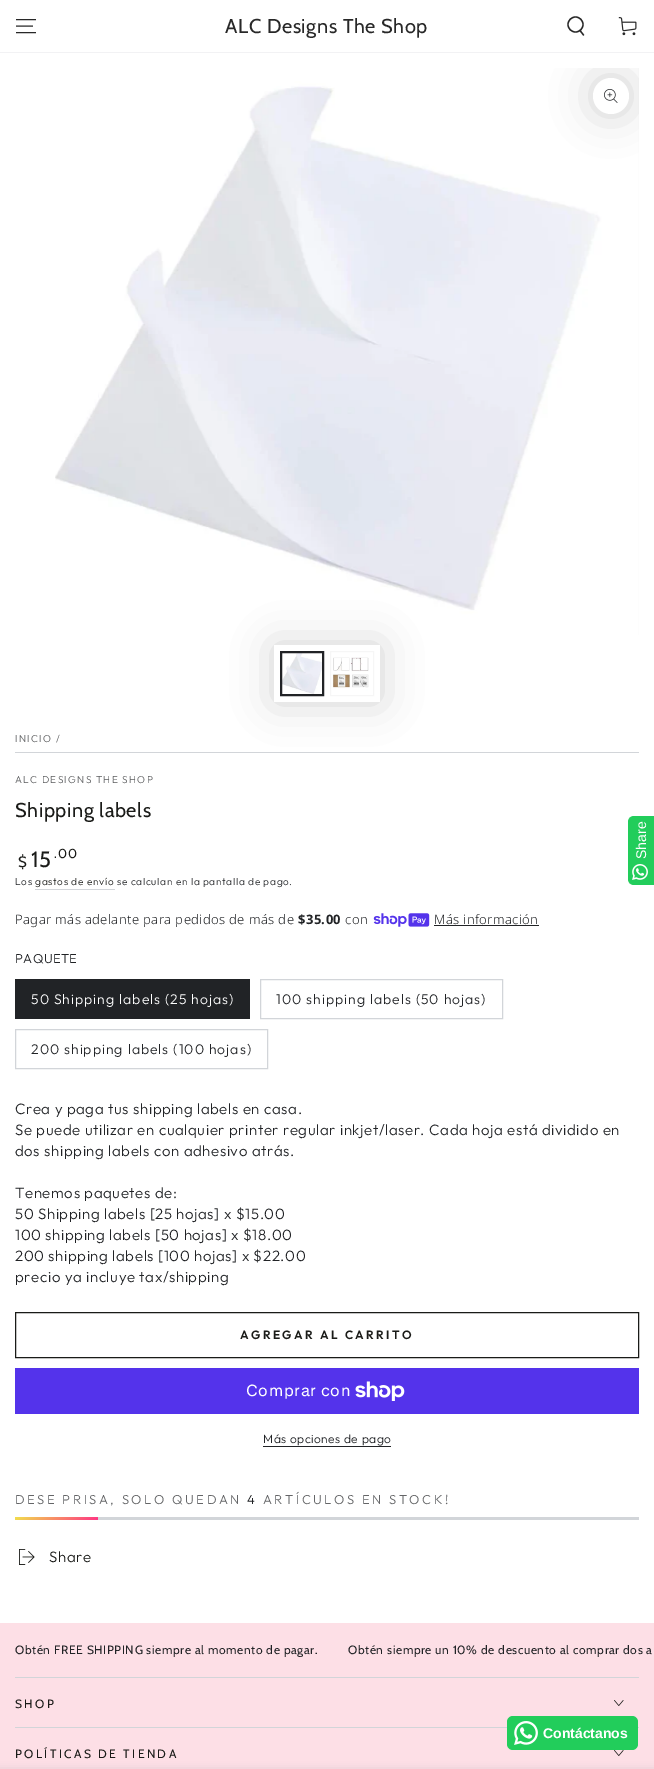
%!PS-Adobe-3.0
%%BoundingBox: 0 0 654 1769
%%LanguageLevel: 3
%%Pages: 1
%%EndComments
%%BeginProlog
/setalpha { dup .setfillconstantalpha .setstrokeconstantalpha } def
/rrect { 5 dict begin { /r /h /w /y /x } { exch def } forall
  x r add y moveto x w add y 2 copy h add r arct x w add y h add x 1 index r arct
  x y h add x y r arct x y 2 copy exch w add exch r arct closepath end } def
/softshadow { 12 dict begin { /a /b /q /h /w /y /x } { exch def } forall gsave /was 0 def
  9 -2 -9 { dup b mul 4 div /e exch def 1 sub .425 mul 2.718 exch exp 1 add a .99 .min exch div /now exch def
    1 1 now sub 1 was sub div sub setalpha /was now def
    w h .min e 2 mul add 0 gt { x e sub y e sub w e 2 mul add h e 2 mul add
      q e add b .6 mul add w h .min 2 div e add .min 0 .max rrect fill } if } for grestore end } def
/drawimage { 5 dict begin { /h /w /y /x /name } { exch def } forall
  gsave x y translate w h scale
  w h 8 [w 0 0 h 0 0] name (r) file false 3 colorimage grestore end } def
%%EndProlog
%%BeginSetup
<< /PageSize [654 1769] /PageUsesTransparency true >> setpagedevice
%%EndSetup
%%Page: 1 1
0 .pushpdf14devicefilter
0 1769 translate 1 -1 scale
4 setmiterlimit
1 setgray
0 0 654 1769 rectfill
(images/3.raw) 15 68 624 567 drawimage
gsave
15 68 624 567 rectclip
0.129 0.137 0.149 setrgbcolor
593 78 36 36 18 20 0.2 softshadow
grestore
0.949 0.949 0.957 setrgbcolor
0 52 654 1 rectfill
0.157 setgray
1.1 setlinewidth
newpath 16 32.5 moveto 36 32.5 lineto 16 26 moveto 33 26 lineto 16 19.5 moveto 36 19.5 lineto stroke
1.3 setlinewidth
newpath 575.5 24.5 7.5 0 360 arc closepath stroke
1 setlinecap
newpath 580 30.5 moveto 583.5 35 lineto stroke
(images/1.raw) 618 17 19 19 drawimage
1 setgray
newpath 611 96 18 0 360 arc closepath fill
(images/2.raw) 604 89 14 14 drawimage
0.824 0.835 0.851 setrgbcolor
15 752 624 1 rectfill
gsave
newpath 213 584 moveto 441 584 lineto 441 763 lineto 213 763 lineto closepath 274 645 moveto 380 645 lineto 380 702 lineto 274 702 lineto closepath eoclip newpath
0.129 0.137 0.149 setrgbcolor
274 645 106 57 0 20 0.2 softshadow
grestore
(images/4.raw) 282 653 40 41 drawimage
0.129 0.137 0.149 setrgbcolor
2 setlinewidth
0 setlinecap
281 652 42 43 rectstroke
(images/5.raw) 331 652 42 43 drawimage
0.965 setgray
1 setlinewidth
330.5 651.5 43 44 rectstroke
0.824 0.835 0.851 setrgbcolor
35 889 80 1 rectfill
(images/6.raw) 373 913 57 14 drawimage
0.129 0.137 0.149 setrgbcolor
434 925 105 1 rectfill
15 979 235 40 rectfill
0.824 0.835 0.851 setrgbcolor
260.5 979.5 242 39 rectstroke
15.5 1029.5 252 39 rectstroke
0.102 0.106 0.094 setrgbcolor
15.5 1312.5 623 45 rectstroke
0.329 0.2 0.922 setrgbcolor
15 1368 624 46 rectfill
(images/7.raw) 355 1381 50 20 drawimage
0.129 0.137 0.149 setrgbcolor
263 1446 128 1 rectfill
0.824 0.835 0.851 setrgbcolor
98 1517 541 3 rectfill
gsave newpath 15 1517 moveto 98 1517 lineto 98 1520 lineto 15 1520 lineto closepath clip newpath
<< /ShadingType 2 /ColorSpace /DeviceRGB /Coords [71 1539 42 1498] /Extend [true true] /Function << /FunctionType 2 /Domain [0 1] /C0 [1 0.204 0.518] /C1 [0.945 0.878 0.302] /N 1 >> >> shfill grestore
(images/8.raw) 19 1549 16 16 drawimage
0.992 0.875 0.902 setrgbcolor
0 1623 654 146 rectfill
0.824 0.835 0.851 setrgbcolor
15 1677 624 1 rectfill
15 1727 624 1 rectfill
(images/9.raw) 614 1700 10 6 drawimage
(images/9.raw) 614 1750 10 6 drawimage
0.133 0.804 0.357 setrgbcolor
newpath 634 816 moveto 654 816 lineto 654 885 lineto 634 885 lineto 630.5 885 628 882.5 628 879 curveto 628 822 lineto 628 818.5 630.5 816 634 816 curveto closepath fill
(images/10.raw) 632 864 16 16 drawimage
507 1716 131 34 6 rrect fill
(images/11.raw) 514 1721 24 24 drawimage
0.129 0.137 0.149 setrgbcolor
0 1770 654 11 0 4 0.15 softshadow
/Cabin-Regular [20 0 0 -20 0 0] selectfont
0.157 setgray
225 33 moveto 0.6 0 (ALC Designs The Shop) ashow
/Outfit-Light [10 0 0 -10 0 0] selectfont
0.349 0.353 0.361 setrgbcolor
15 742 moveto 1.3 0 (INICIO) ashow
56 742 moveto 1.3 0 (/) ashow
15 783 moveto 1.3 0 (ALC DESIGNS THE SHOP) ashow
/Cabin-Regular [20 0 0 -20 0 0] selectfont
0.102 0.106 0.094 setrgbcolor
15 817 moveto 0.6 0 (Shipping labels) ashow
/Cabin-Regular [15 0 0 -15 0 0] selectfont
18 867 moveto 1.3 0 ($) ashow
/Cabin-Regular [22 0 0 -22 0 0] selectfont
31 867 moveto 1.3 0 (15) ashow
/Cabin-Regular [13 0 0 -13 0 0] selectfont
54 858 moveto 1.3 0 (.00) ashow
/Outfit-Light [10 0 0 -10 0 0] selectfont
0.129 0.137 0.149 setrgbcolor
15 885 moveto 0.7 0 (Los) ashow
0.102 0.106 0.094 setrgbcolor
35 885 moveto 0.7 0 (gastos de envío) ashow
0.129 0.137 0.149 setrgbcolor
117 885 moveto 0.7 0 (se calculan en la pantalla de pago.) ashow
/NotoSans-Light [13 0 0 -13 0 0] selectfont
15 924 moveto 0.4 0 (Pagar más adelante para pedidos de más de) ashow
/NotoSans-Bold [13 0 0 -13 0 0] selectfont
298 924 moveto 0.4 0 ($35.00) ashow
/NotoSans-Light [13 0 0 -13 0 0] selectfont
345 924 moveto 0.4 0 (con) ashow
434 924 moveto 0.4 0 (Más información) ashow
/Outfit-Light [13 0 0 -13 0 0] selectfont
15 963 moveto 0.4 0 (PAQUETE) ashow
/Outfit-Light [14 0 0 -14 0 0] selectfont
1 setgray
31 1004 moveto 1 0 (50 Shipping labels \(25 hojas\)) ashow
0.129 0.137 0.149 setrgbcolor
276 1004 moveto 1 0 (100 shipping labels \(50 hojas\)) ashow
31 1054 moveto 1 0 (200 shipping labels \(100 hojas\)) ashow
/Outfit-Light [15 0 0 -15 0 0] selectfont
15 1114 moveto 0.6 0 (Crea y paga tus shipping labels en casa.) ashow
15 1135 moveto 0.6 0 (Se puede utilizar en cualquier printer regular inkjet/laser. Cada hoja está dividido en) ashow
15 1156 moveto 0.6 0 (dos shipping labels con adhesivo atrás.) ashow
15 1198 moveto 0.6 0 (Tenemos paquetes de:) ashow
15 1219 moveto 0.6 0 (50 Shipping labels [25 hojas] x $15.00) ashow
15 1240 moveto 0.6 0 (100 shipping labels [50 hojas] x $18.00) ashow
15 1261 moveto 0.6 0 (200 shipping labels [100 hojas] x $22.00) ashow
15 1282 moveto 0.6 0 (precio ya incluye tax/shipping) ashow
/Outfit-SemiBold [12 0 0 -12 0 0] selectfont
0.102 0.106 0.094 setrgbcolor
240 1339 moveto 2.4 0 (AGREGAR AL CARRITO) ashow
/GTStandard-Regular [16 0 0 -16 0 0] selectfont
1 setgray
246 1396 moveto 0.6 0 (Comprar con) ashow
/Outfit-Light [12 0 0 -12 0 0] selectfont
0.129 0.137 0.149 setrgbcolor
263 1443 moveto 0.5 0 (Más opciones de pago) ashow
/Outfit-Light [13 0 0 -13 0 0] selectfont
0.392 0.396 0.404 setrgbcolor
15 1504 moveto 2.5 0 (DESE PRISA, SOLO QUEDAN) ashow
0.129 0.137 0.149 setrgbcolor
247 1504 moveto 2.5 0 (4) ashow
0.392 0.396 0.404 setrgbcolor
263 1504 moveto 2.5 0 (ARTÍCULOS EN STOCK!) ashow
/Outfit-Light [15 0 0 -15 0 0] selectfont
0.102 0.106 0.094 setrgbcolor
49 1562 moveto 0.6 0 (Share) ashow
/Cabin-Regular [12 0 0 -12 0 0] selectfont
0.129 0.137 0.149 setrgbcolor
15 1654 moveto 0.6 0 (Obtén FREE SHIPPING siempre al momento de pagar.) ashow
348 1654 moveto 0.6 0 (Obtén siempre un 10% de descuento al comprar dos a) ashow
0.102 0.106 0.094 setrgbcolor
15 1708 moveto 2.4 0 (SHOP) ashow
15 1758 moveto 2.4 0 (POLÍTICAS DE TIENDA) ashow
/LiberationSans-Regular [14 0 0 -14 0 0] selectfont
1 setgray
gsave 646 859 translate -90 rotate 0 0 moveto (Share) show grestore
/LiberationSans-Bold [14 0 0 -14 0 0] selectfont
543 1738 moveto (Contáctanos) show
.poppdf14devicefilter showpage
%%EOF
